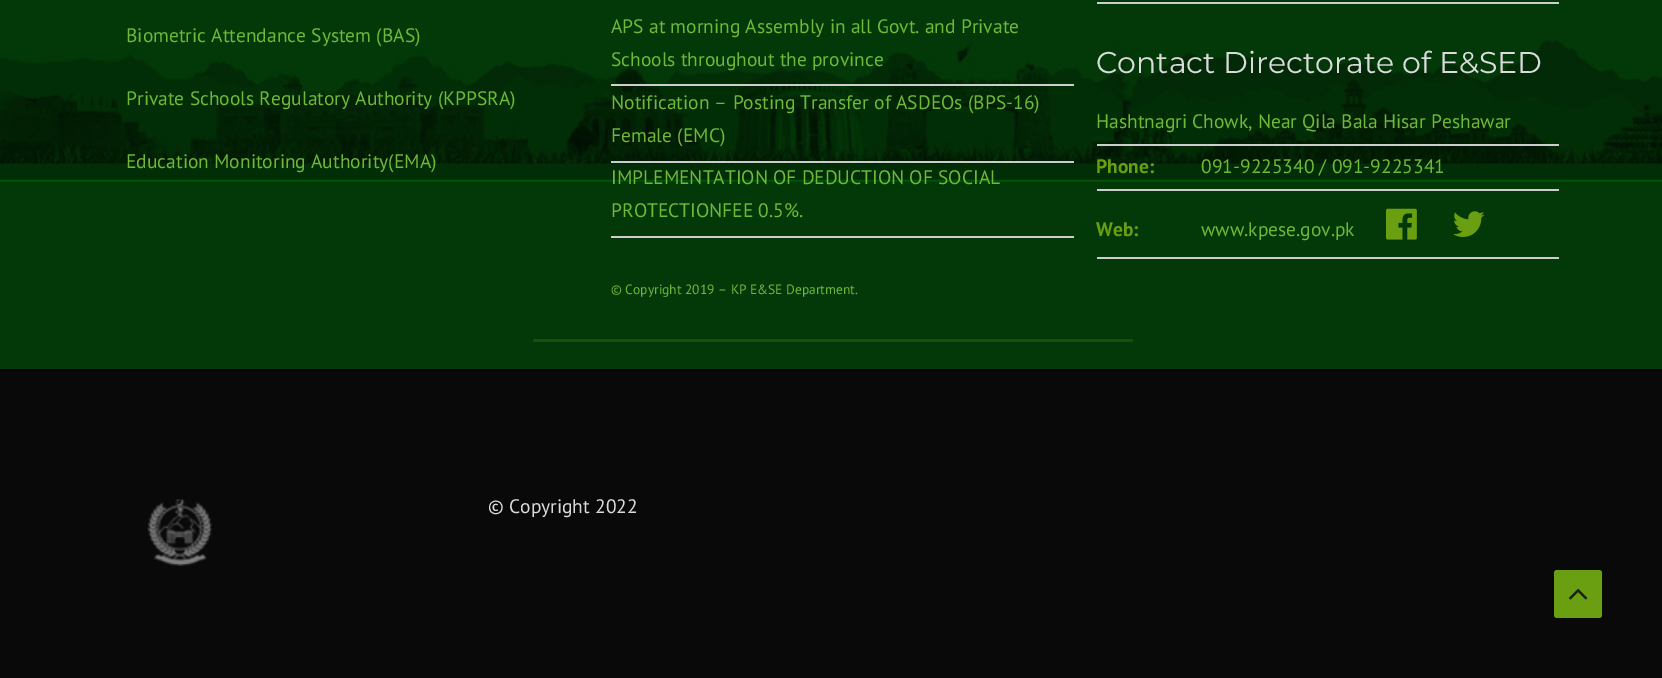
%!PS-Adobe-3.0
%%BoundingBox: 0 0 1662 678
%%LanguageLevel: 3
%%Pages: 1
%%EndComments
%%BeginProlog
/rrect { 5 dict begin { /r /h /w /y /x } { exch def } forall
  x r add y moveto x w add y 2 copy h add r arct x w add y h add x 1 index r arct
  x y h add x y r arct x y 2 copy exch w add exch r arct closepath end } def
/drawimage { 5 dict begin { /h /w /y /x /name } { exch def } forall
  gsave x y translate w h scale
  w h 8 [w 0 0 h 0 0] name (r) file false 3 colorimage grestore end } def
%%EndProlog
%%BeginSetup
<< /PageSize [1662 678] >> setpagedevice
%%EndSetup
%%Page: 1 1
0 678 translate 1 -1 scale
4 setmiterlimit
1 setgray
0 0 1662 678 rectfill
(images/1.raw) 0 0 1662 369 drawimage
0.804 setgray
611 84 463 2 rectfill
611 161 463 2 rectfill
611 236 463 2 rectfill
1097 2 462 2 rectfill
1097 144 462 2 rectfill
1097 189 462 2 rectfill
1097 257 462 2 rectfill
(images/2.raw) 1386 208 31 32 drawimage
(images/3.raw) 1453 211 32 26 drawimage
0.035 setgray
0 371 1662 307 rectfill
0 setgray
0 369 1662 2 rectfill
(images/4.raw) 147 499 65 67 drawimage
0.412 0.624 0.067 setrgbcolor
1554 570 48 48 3 rrect fill
(images/5.raw) 1569 588 19 12 drawimage
0.075 0.322 0.039 setrgbcolor
533 339 600 3 1.5 rrect fill
/PTSans-Regular [19.5 0 0 -19.5 0 0] selectfont
0.435 0.725 0.224 setrgbcolor
126 42 moveto (Biometric Attendance System \(BAS\)) show
126 105 moveto (Private Schools Regulatory Authority \(KPPSRA\)) show
126 168 moveto (Education Monitoring Authority\(EMA\)) show
611 33 moveto (APS at morning Assembly in all Govt. and Private) show
611 66 moveto (Schools throughout the province) show
611 109 moveto (Notification – Posting Transfer of ASDEOs \(BPS-16\)) show
611 142 moveto (Female \(EMC\)) show
611 184 moveto (IMPLEMENTATION OF DEDUCTION OF SOCIAL) show
611 217 moveto (PROTECTIONFEE 0.5%.) show
/PTSans-Regular [13.5 0 0 -13.5 0 0] selectfont
611 294 moveto (© Copyright 2019 – KP E&SE Department.) show
/Montserrat-Regular [30 0 0 -30 0 0] selectfont
0.859 setgray
1096 73 moveto (Contact Directorate of E&SED) show
/PTSans-Regular [19.5 0 0 -19.5 0 0] selectfont
0.435 0.725 0.224 setrgbcolor
1096 128 moveto (Hashtnagri Chowk, Near Qila Bala Hisar Peshawar) show
/PTSans-Bold [19.5 0 0 -19.5 0 0] selectfont
0.412 0.624 0.067 setrgbcolor
1096 173 moveto (Phone:) show
/PTSans-Regular [19.5 0 0 -19.5 0 0] selectfont
0.435 0.725 0.224 setrgbcolor
1201 173 moveto (091-9225340 / 091-9225341) show
/PTSans-Bold [19.5 0 0 -19.5 0 0] selectfont
0.412 0.624 0.067 setrgbcolor
1096 236 moveto (Web:) show
/PTSans-Regular [19.5 0 0 -19.5 0 0] selectfont
0.435 0.725 0.224 setrgbcolor
1201 236 moveto (www.kpese.gov.pk) show
0.859 setgray
488 513 moveto (© Copyright 2022) show
showpage
%%EOF
